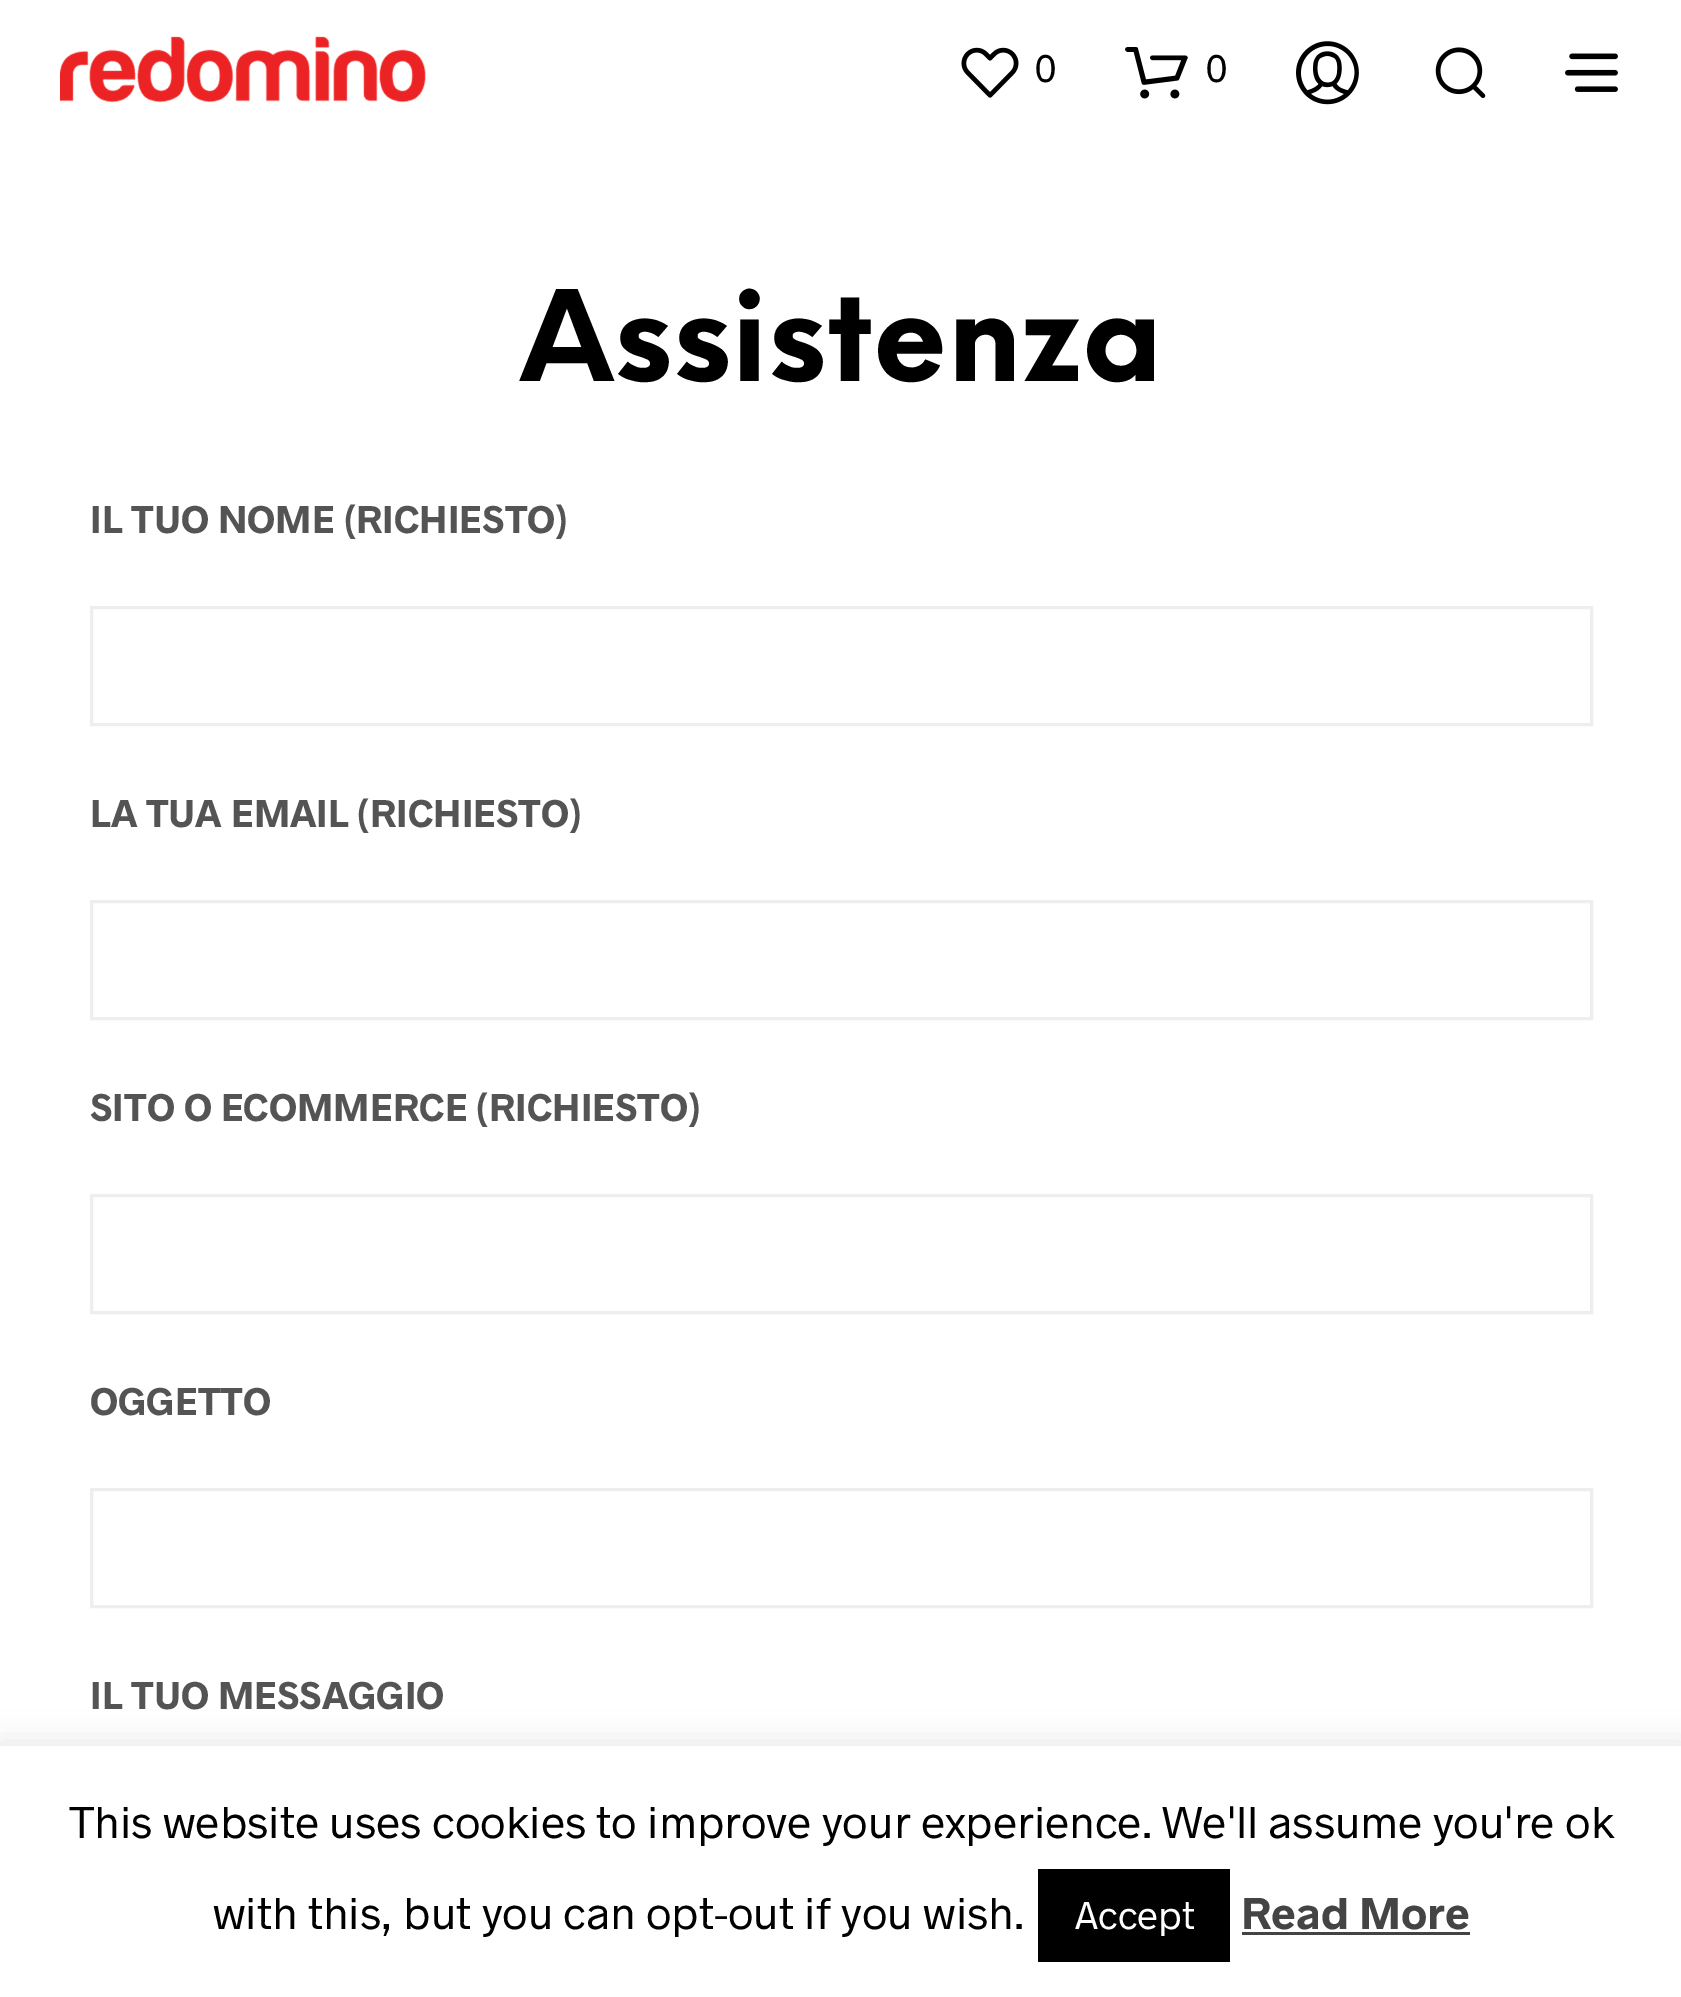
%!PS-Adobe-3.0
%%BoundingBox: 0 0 1681 1997
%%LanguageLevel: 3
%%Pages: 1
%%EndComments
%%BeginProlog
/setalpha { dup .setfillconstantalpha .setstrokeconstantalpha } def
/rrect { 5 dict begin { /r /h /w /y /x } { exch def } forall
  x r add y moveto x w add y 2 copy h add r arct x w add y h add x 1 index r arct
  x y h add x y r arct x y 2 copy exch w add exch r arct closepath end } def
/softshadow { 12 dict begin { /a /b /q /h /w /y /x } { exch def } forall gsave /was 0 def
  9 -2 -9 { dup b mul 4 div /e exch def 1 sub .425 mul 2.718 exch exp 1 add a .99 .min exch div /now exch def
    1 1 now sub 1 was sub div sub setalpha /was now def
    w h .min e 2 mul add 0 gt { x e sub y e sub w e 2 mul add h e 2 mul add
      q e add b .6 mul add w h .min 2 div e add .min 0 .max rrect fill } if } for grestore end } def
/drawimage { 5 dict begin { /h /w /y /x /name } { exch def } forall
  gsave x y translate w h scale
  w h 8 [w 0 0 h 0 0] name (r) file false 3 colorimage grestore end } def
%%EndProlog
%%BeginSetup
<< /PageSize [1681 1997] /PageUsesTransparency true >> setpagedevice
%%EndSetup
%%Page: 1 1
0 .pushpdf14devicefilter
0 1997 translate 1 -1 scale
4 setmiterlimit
1 setgray
0 0 1681 1997 rectfill
(images/1.raw) 60 36 366 67 drawimage
(images/2.raw) 961 47 58 51 drawimage
(images/3.raw) 1125 47 63 52 drawimage
(images/4.raw) 1296 41 63 64 drawimage
(images/5.raw) 1435 47 51 51 drawimage
(images/6.raw) 1565 53 53 39 drawimage
0.933 setgray
3 setlinewidth
91.5 607.5 1500 117 rectstroke
91.5 901.5 1500 117 rectstroke
91.5 1195.5 1500 117 rectstroke
91.5 1489.5 1500 117 rectstroke
0.675 0.671 0.671 setrgbcolor
0 1743 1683 252 0 15 0.3 softshadow
1 setgray
0 1746 1681 251 rectfill
0 setgray
1038 1869 192 93 rectfill
0.267 setgray
1242 1932 228 3 rectfill
/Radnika-Regular [39 0 0 -39 0 0] selectfont
0 setgray
1035 82 moveto (0) show
1206 82 moveto (0) show
/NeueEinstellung-Bold [123 0 0 -123 0 0] selectfont
520 381 moveto (Assistenza) show
/Radnika-Bold [39 0 0 -39 0 0] selectfont
0.329 setgray
90 533 moveto (IL TUO NOME \(RICHIESTO\)) show
90 827 moveto (LA TUA EMAIL \(RICHIESTO\)) show
90 1121 moveto (SITO O ECOMMERCE \(RICHIESTO\)) show
90 1415 moveto (OGGETTO) show
90 1709 moveto (IL TUO MESSAGGIO) show
/Radnika-Regular [45 0 0 -45 0 0] selectfont
0 setgray
69 1838 moveto (This website uses cookies to improve your experience. We'll assume you're ok) show
213 1929 moveto (with this, but you can opt-out if you wish.) show
/Radnika-Regular [39 0 0 -39 0 0] selectfont
1 setgray
1075 1929 moveto (Accept) show
/Radnika-Bold [45 0 0 -45 0 0] selectfont
0.267 setgray
1241 1929 moveto (Read More) show
.poppdf14devicefilter showpage
%%EOF
